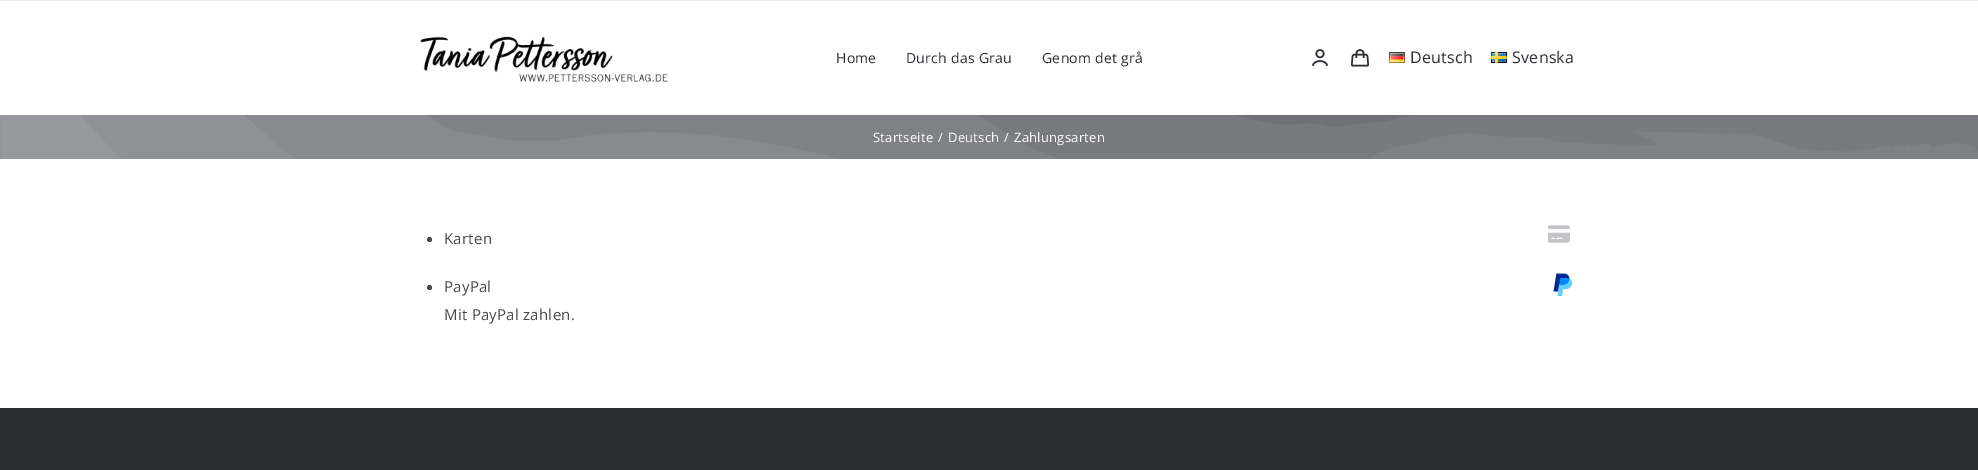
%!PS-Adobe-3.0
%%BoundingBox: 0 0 1978 470
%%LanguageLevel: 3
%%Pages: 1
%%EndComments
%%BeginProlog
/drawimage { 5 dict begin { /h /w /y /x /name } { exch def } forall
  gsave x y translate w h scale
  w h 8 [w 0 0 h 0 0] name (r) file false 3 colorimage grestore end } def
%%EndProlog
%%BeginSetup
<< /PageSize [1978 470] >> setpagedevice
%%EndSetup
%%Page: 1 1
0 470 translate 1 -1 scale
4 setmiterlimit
1 setgray
0 0 1978 470 rectfill
0.918 setgray
0 0 1978 1 rectfill
(images/1.raw) 420 36 248 46 drawimage
(images/2.raw) 1312 49 16 17 drawimage
(images/3.raw) 1350 49 20 18 drawimage
(images/4.raw) 1389 52 16 11 drawimage
(images/5.raw) 1491 52 16 11 drawimage
(images/6.raw) 0 115 1978 44 drawimage
0.286 setgray
newpath 429.5 239.5 2.5 0 360 arc closepath fill
(images/7.raw) 1548 225 22 18 drawimage
newpath 429.5 287.5 2.5 0 360 arc closepath fill
(images/8.raw) 1553 273 20 23 drawimage
0.169 0.18 0.196 setrgbcolor
0 408 1978 62 rectfill
/OpenSans-Regular [14 0 0 -14 0 0] selectfont
836 63 moveto 0.25 0 (Home) ashow
906 63 moveto 0.25 0 (Durch das Grau) ashow
1042 63 moveto 0.25 0 (Genom det grå) ashow
/OpenSans-Regular [16 0 0 -16 0 0] selectfont
1410 63 moveto 0.25 0 (Deutsch) ashow
1512 63 moveto 0.25 0 (Svenska) ashow
/OpenSans-Regular [13 0 0 -13 0 0] selectfont
1 setgray
873 142 moveto 0.25 0 (Startseite) ashow
938 142 moveto 0.25 0 (/) ashow
948 142 moveto 0.25 0 (Deutsch) ashow
1004 142 moveto 0.25 0 (/) ashow
1014 142 moveto 0.25 0 (Zahlungsarten) ashow
/OpenSans-Regular [15 0 0 -15 0 0] selectfont
0.286 setgray
444 244 moveto 0.25 0 (Karten) ashow
444 292 moveto 0.25 0 (PayPal) ashow
444 320 moveto 0.25 0 (Mit PayPal zahlen.) ashow
showpage
%%EOF
